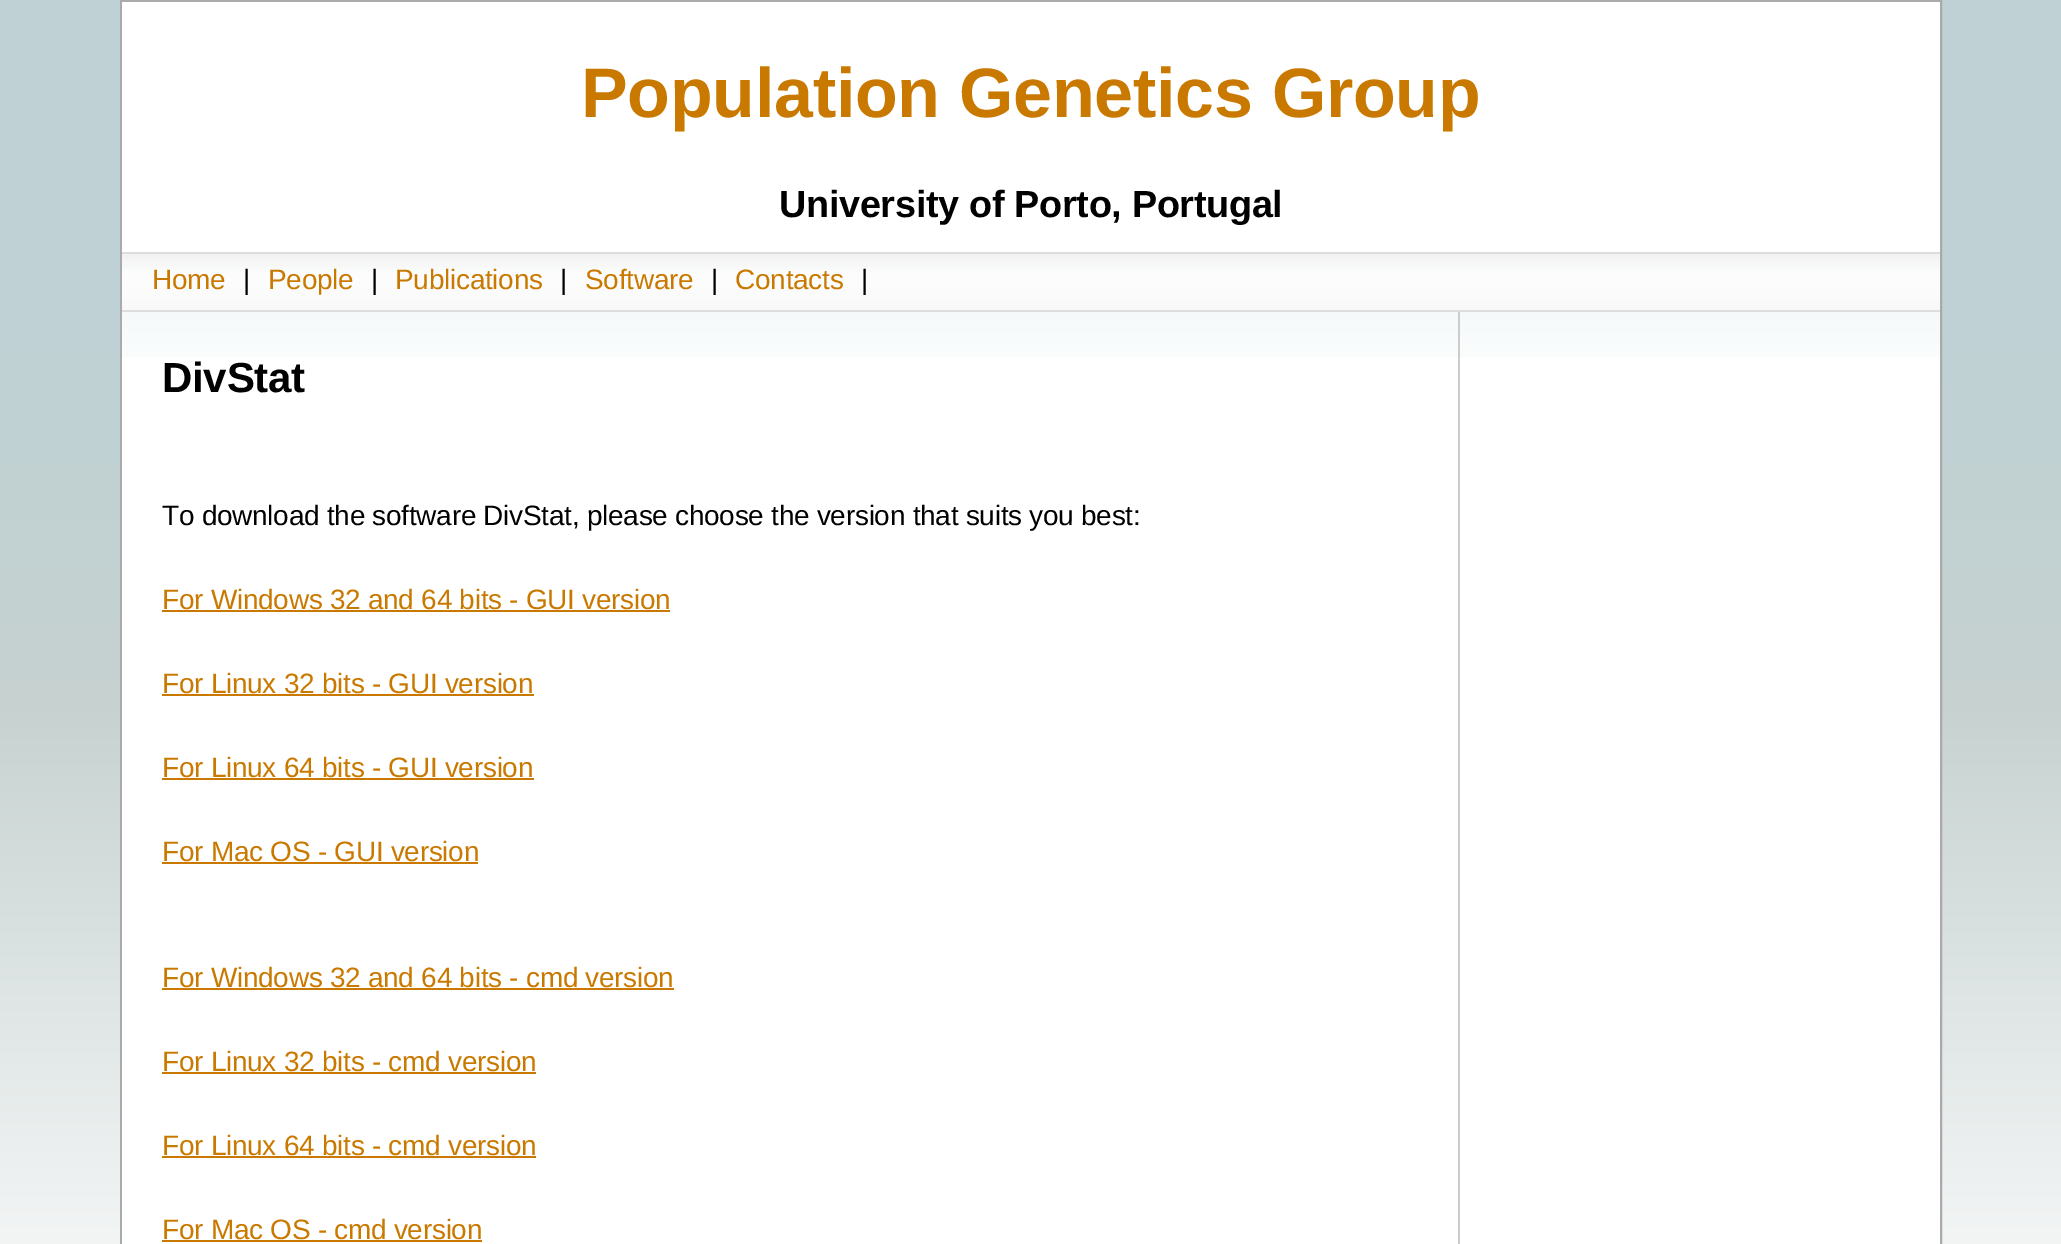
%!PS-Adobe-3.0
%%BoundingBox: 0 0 2061 1244
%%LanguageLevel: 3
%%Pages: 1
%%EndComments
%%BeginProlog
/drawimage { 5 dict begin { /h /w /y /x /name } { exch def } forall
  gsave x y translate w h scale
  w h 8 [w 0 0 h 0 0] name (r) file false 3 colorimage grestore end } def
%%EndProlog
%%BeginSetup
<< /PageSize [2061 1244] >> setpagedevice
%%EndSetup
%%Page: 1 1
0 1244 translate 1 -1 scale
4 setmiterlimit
1 setgray
0 0 2061 1244 rectfill
gsave newpath 0 0 moveto 2061 0 lineto 2061 1244 lineto 0 1244 lineto closepath clip newpath
<< /ShadingType 2 /ColorSpace /DeviceRGB /Coords [0 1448 0 0] /Extend [true true] /Function << /FunctionType 3 /Domain [0 1] /Functions [<< /FunctionType 2 /Domain [0 1] /C0 [1 1 1] /C1 [1 1 1] /N 1 >> << /FunctionType 2 /Domain [0 1] /C0 [1 1 1] /C1 [0.776 0.82 0.816] /N 1 >> << /FunctionType 2 /Domain [0 1] /C0 [0.776 0.82 0.816] /C1 [0.749 0.82 0.831] /N 1 >> << /FunctionType 2 /Domain [0 1] /C0 [0.749 0.82 0.831] /C1 [0.749 0.82 0.831] /N 1 >>] /Bounds [0.04 0.52 0.76] /Encode [0 1 0 1 0 1 0 1] >> >> shfill grestore
0.667 setgray
2 setlinewidth
121 1 1820 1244 rectstroke
1 setgray
122 2 1818 250 rectfill
(images/1.raw) 122 254 1818 56 drawimage
0.867 setgray
122 252 1818 2 rectfill
122 310 1818 2 rectfill
1 setgray
122 357 1818 887 rectfill
(images/2.raw) 122 312 1818 45 drawimage
0.8 setgray
1458 312 2 932 rectfill
0.792 0.475 0 setrgbcolor
162 610 508 2 rectfill
162 694 372 2 rectfill
162 778 372 2 rectfill
162 862 316 2 rectfill
162 988 512 2 rectfill
162 1072 374 2 rectfill
162 1156 374 2 rectfill
162 1240 320 2 rectfill
/LiberationSans-Bold [70 0 0 -70 0 0] selectfont
581 117 moveto -0.28 0 (Population Genetics Group) ashow
/LiberationSans-Bold [37.75 0 0 -37.75 0 0] selectfont
0 setgray
779 217 moveto -0.28 0 (University of Porto, Portugal) ashow
/LiberationSans-Regular [28 0 0 -28 0 0] selectfont
0.792 0.475 0 setrgbcolor
152 289 moveto -0.28 0 (Home) ashow
0 setgray
243 289 moveto -0.28 0 (|) ashow
0.792 0.475 0 setrgbcolor
268 289 moveto -0.28 0 (People) ashow
0 setgray
371 289 moveto -0.28 0 (|) ashow
0.792 0.475 0 setrgbcolor
395 289 moveto -0.28 0 (Publications) ashow
0 setgray
560 289 moveto -0.28 0 (|) ashow
0.792 0.475 0 setrgbcolor
585 289 moveto -0.28 0 (Software) ashow
0 setgray
711 289 moveto -0.28 0 (|) ashow
0.792 0.475 0 setrgbcolor
735 289 moveto -0.28 0 (Contacts) ashow
0 setgray
861 289 moveto -0.28 0 (|) ashow
/LiberationSans-Bold [42 0 0 -42 0 0] selectfont
162 392 moveto -0.28 0 (DivStat) ashow
/LiberationSans-Regular [28 0 0 -28 0 0] selectfont
162 525 moveto -0.28 0 (To download the software DivStat, please choose the version that suits you best:) ashow
0.792 0.475 0 setrgbcolor
162 609 moveto -0.28 0 (For Windows 32 and 64 bits - GUI version) ashow
162 693 moveto -0.28 0 (For Linux 32 bits - GUI version) ashow
162 777 moveto -0.28 0 (For Linux 64 bits - GUI version) ashow
162 861 moveto -0.28 0 (For Mac OS - GUI version) ashow
162 987 moveto -0.28 0 (For Windows 32 and 64 bits - cmd version) ashow
162 1071 moveto -0.28 0 (For Linux 32 bits - cmd version) ashow
162 1155 moveto -0.28 0 (For Linux 64 bits - cmd version) ashow
162 1239 moveto -0.28 0 (For Mac OS - cmd version) ashow
showpage
%%EOF
